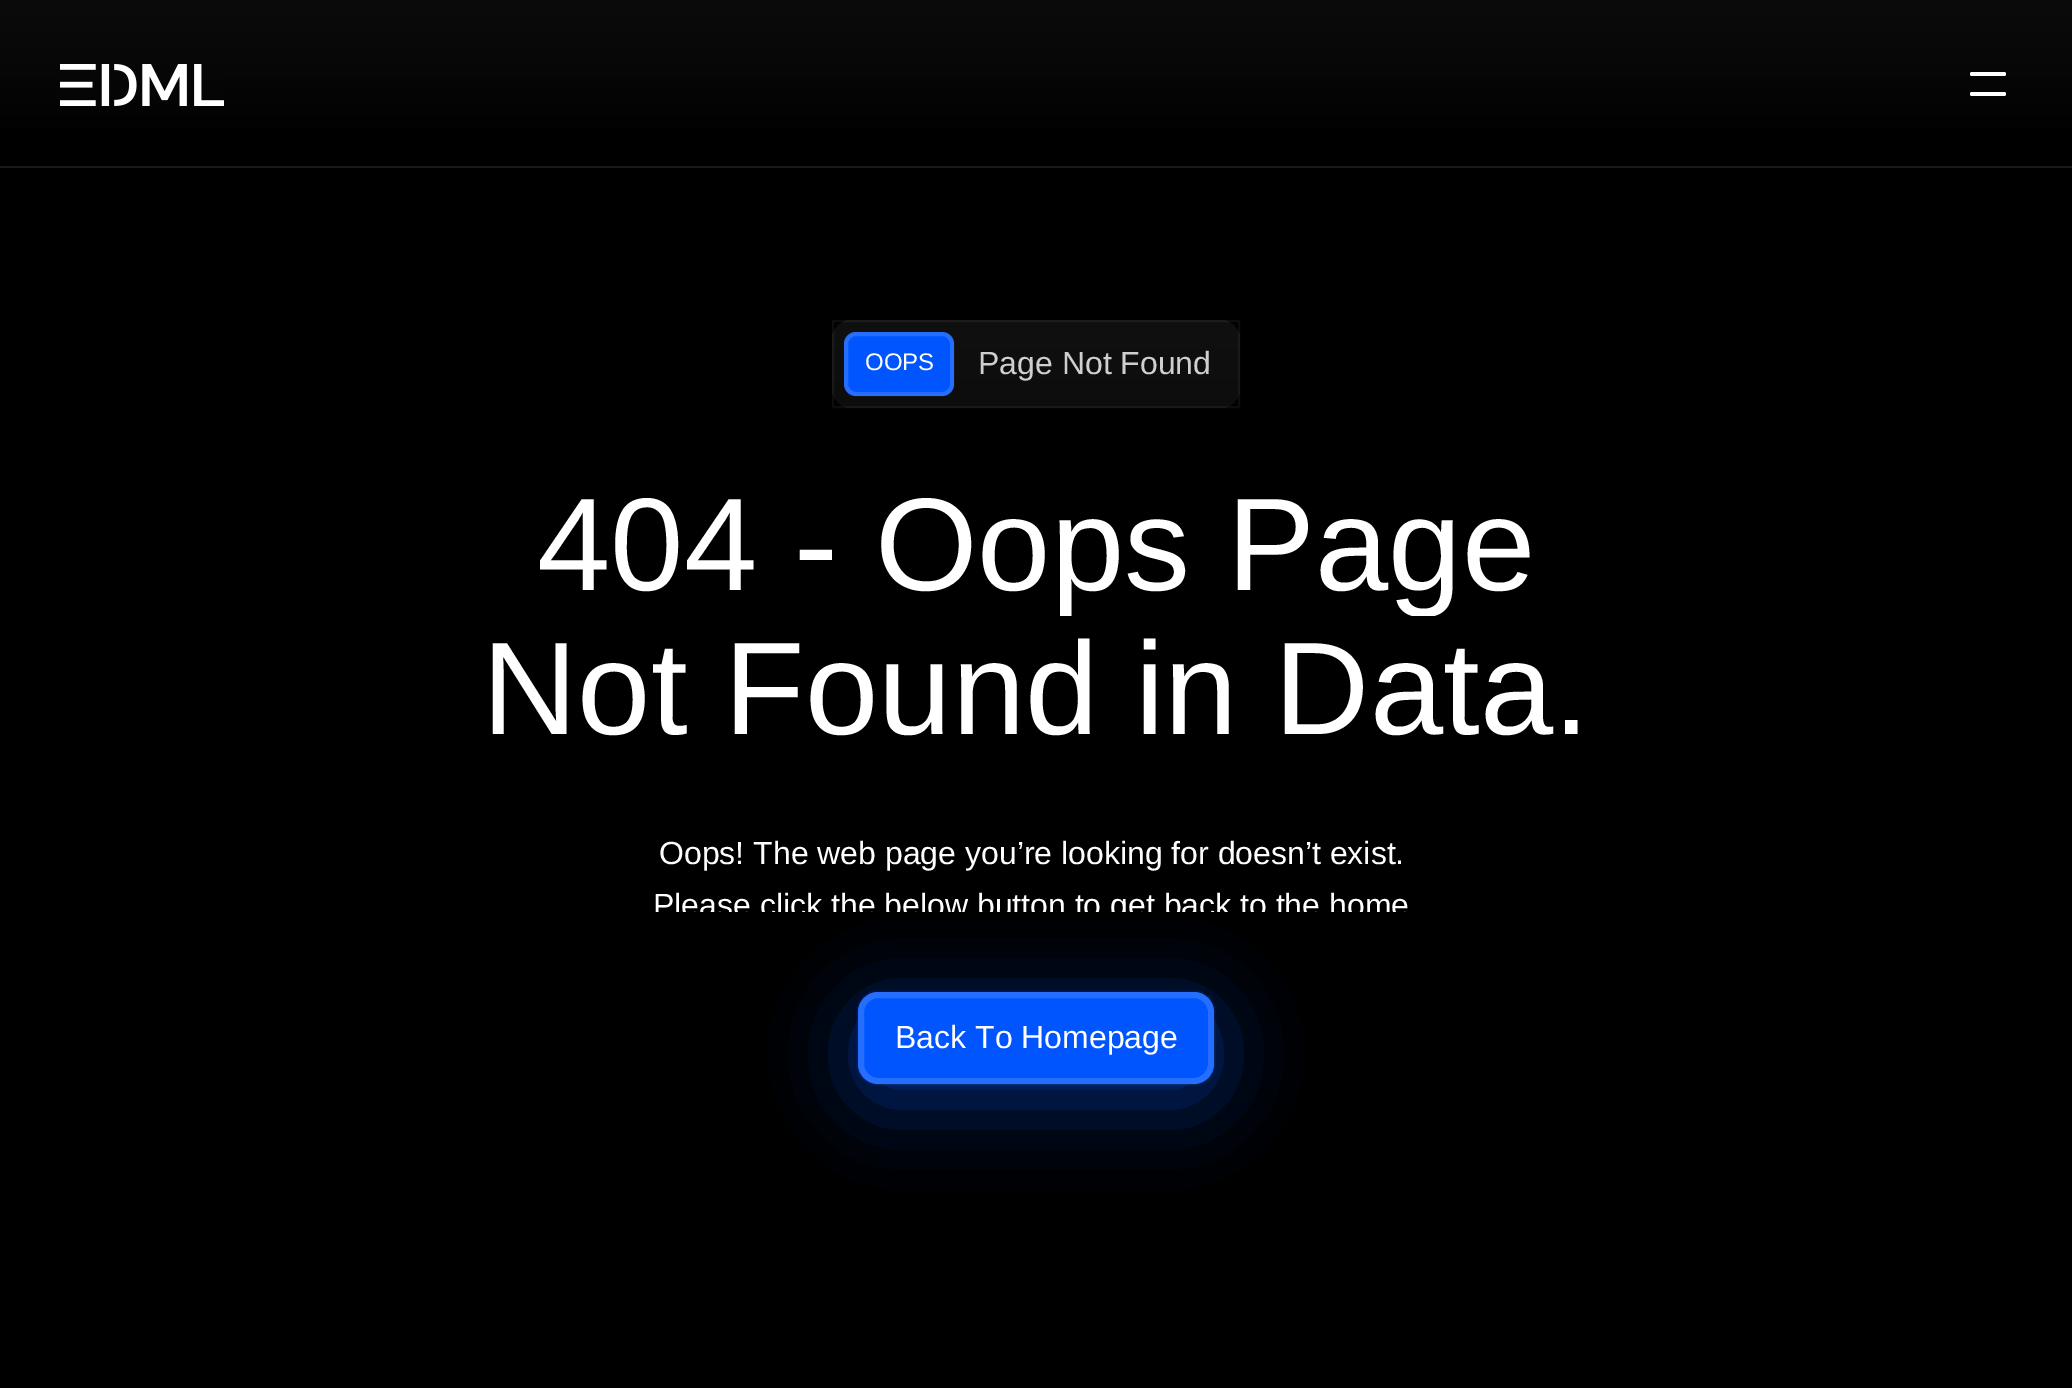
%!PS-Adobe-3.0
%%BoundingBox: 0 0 2072 1388
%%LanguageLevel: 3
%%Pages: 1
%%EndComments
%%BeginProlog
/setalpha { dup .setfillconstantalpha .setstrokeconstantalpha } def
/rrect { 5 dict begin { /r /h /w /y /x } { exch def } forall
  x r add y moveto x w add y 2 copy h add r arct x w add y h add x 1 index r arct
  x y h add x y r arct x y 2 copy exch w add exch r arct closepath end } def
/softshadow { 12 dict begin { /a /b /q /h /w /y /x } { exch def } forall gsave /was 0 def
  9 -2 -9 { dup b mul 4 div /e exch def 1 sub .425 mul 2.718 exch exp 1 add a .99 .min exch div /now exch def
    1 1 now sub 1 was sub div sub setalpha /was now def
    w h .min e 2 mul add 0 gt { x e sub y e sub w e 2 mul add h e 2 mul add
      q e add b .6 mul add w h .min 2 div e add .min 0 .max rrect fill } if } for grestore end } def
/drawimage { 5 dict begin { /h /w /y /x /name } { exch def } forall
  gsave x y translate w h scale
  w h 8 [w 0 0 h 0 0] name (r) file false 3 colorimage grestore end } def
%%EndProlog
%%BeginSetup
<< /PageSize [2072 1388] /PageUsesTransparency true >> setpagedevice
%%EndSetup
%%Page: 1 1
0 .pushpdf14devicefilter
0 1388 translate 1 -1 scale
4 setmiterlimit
0 setgray
0 0 2072 1388 rectfill
gsave newpath 0 0 moveto 2072 0 lineto 2072 129 lineto 0 129 lineto closepath clip newpath
<< /ShadingType 2 /ColorSpace /DeviceRGB /Coords [1036 0 1036 168] /Extend [true true] /Function << /FunctionType 3 /Domain [0 1] /Functions [<< /FunctionType 2 /Domain [0 1] /C0 [0.039 0.039 0.039] /C1 [0.039 0.039 0.039] /N 1 >> << /FunctionType 2 /Domain [0 1] /C0 [0.039 0.039 0.039] /C1 [0 0 0] /N 1 >>] /Bounds [0.07] /Encode [0 1 0 1] >> >> shfill grestore
(images/1.raw) 60 64 164 42 drawimage
1 setgray
1970 72 36 4 2 rrect fill
1970 92 36 4 2 rrect fill
0.102 setgray
0 166 2072 2 rectfill
gsave 832 320 408 88 20 rrect clip newpath
<< /ShadingType 2 /ColorSpace /DeviceRGB /Coords [1036 232 1036 408] /Extend [true true] /Function << /FunctionType 2 /Domain [0 1] /C0 [0.071 0.071 0.071] /C1 [0.051 0.051 0.051] /N 1 >> >> shfill grestore
0 0.333 0.996 setrgbcolor
844 332 110 64 12 rrect fill
0.15 setalpha
1 setgray
4 setlinewidth
846 334 106 60 10 rrect stroke
0.05 setalpha
2 setlinewidth
833 321 406 86 rectstroke
1 setalpha
0 0.039 0.122 setrgbcolor
857 991 358 94 21 rrect stroke
0 0.333 1 setrgbcolor
858 1008 356 92 20 40 0.5 softshadow
0 0.333 0.996 setrgbcolor
858 992 356 92 20 rrect fill
0.15 setalpha
1 setgray
6 setlinewidth
861 995 350 86 17 rrect stroke
/LiberationSans-Regular [24 0 0 -24 0 0] selectfont
1 setalpha
865 370 moveto (OOPS) show
/LiberationSans-Regular [32 0 0 -32 0 0] selectfont
0.812 setgray
978 374 moveto (Page Not Found) show
gsave
100 472 1872 144 rectclip
/LiberationSans-Regular [132 0 0 -132 0 0] selectfont
1 setgray
537 590 moveto (404 - Oops Page) show
grestore
/LiberationSans-Regular [132 0 0 -132 0 0] selectfont
1 setgray
482 734 moveto (Not Found in Data.) show
/LiberationSans-Regular [32 0 0 -32 0 0] selectfont
659 864 moveto (Oops! The web page you’re looking for doesn’t exist.) show
gsave
536 808 1000 104 rectclip
653 916 moveto (Please click the below button to get back to the home) show
grestore
895 1048 moveto (Back To Homepage) show
.poppdf14devicefilter showpage
%%EOF
